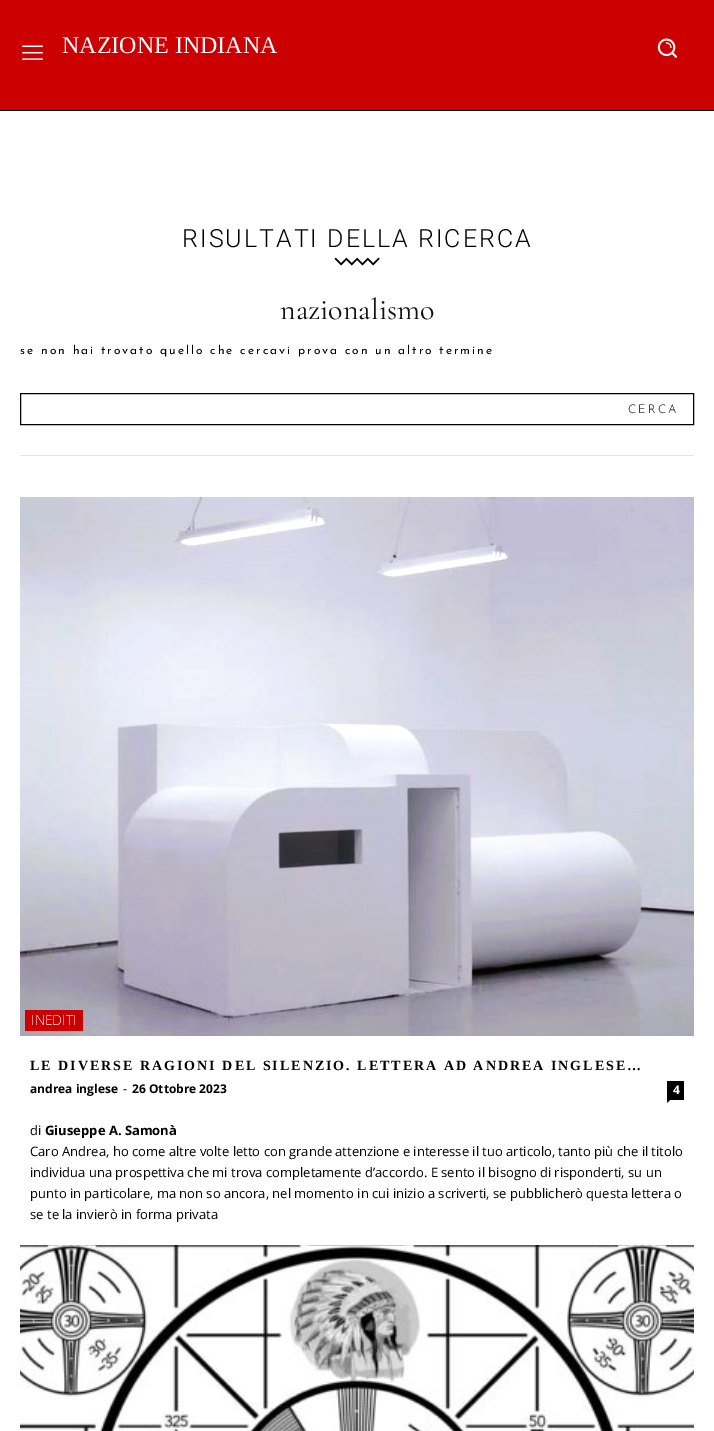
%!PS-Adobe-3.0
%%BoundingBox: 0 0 714 1431
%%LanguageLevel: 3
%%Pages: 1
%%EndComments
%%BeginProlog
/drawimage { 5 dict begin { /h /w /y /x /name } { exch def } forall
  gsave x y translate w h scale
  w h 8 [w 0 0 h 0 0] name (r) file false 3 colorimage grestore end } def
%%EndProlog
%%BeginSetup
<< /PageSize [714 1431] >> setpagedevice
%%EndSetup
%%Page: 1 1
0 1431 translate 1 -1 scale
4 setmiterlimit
1 setgray
0 0 714 1431 rectfill
0.8 0 0 setrgbcolor
0 0 714 110 rectfill
0 setgray
0 110 714 1 rectfill
(images/1.raw) 22 45 21 15 drawimage
(images/2.raw) 657 38 20 20 drawimage
(images/3.raw) 334 257 46 9 drawimage
0.898 setgray
20 455 674 1 rectfill
0 setgray
20.5 393.5 673 31 rectstroke
(images/4.raw) 20 497 674 539 drawimage
0.8 0 0 setrgbcolor
25 1010 58 21 rectfill
0 setgray
667 1081 17 19 rectfill
newpath 667 1100 moveto 670 1100 lineto 667 1103 lineto closepath fill
(images/5.raw) 20 1245 674 186 drawimage
/LiberationSerif-Regular [24 0 0 -24 0 0] selectfont
1 setgray
62 53 moveto (NAZIONE INDIANA) show
/Roboto-Light [25 0 0 -25 0 0] selectfont
0 setgray
182 247 moveto 2 0 (RISULTATI DELLA RICERCA) ashow
/CormorantGaramond-Regular [30 0 0 -30 0 0] selectfont
0.067 setgray
280 319 moveto (nazionalismo) show
/JosefinSans-Regular [12 0 0 -12 0 0] selectfont
0 setgray
20 354 moveto 2 0 (se non hai trovato quello che cercavi prova con un altro termine) ashow
/JosefinSans-Light [12 0 0 -12 0 0] selectfont
628 413 moveto 2 0 (CERCA) ashow
/OpenSans-Light [14 0 0 -14 0 0] selectfont
1 setgray
31 1025 moveto (INEDITI) show
/LiberationSerif-Bold [14 0 0 -14 0 0] selectfont
0 setgray
30 1070 moveto 2 0 (LE DIVERSE RAGIONI DEL SILENZIO. LETTERA AD ANDREA INGLESE…) ashow
/OpenSans-Bold [12 0 0 -12 0 0] selectfont
30 1093 moveto (andrea inglese) show
/OpenSans-Regular [12 0 0 -12 0 0] selectfont
123 1093 moveto (-) show
/OpenSans-Bold [12 0 0 -12 0 0] selectfont
132 1093 moveto (26 Ottobre 2023) show
1 setgray
673 1094 moveto (4) show
/OpenSans-Regular [13 0 0 -13 0 0] selectfont
0 setgray
30 1135 moveto (di) show
/OpenSans-Bold [13 0 0 -13 0 0] selectfont
45 1135 moveto (Giuseppe A. Samonà) show
/OpenSans-Regular [13 0 0 -13 0 0] selectfont
30 1156 moveto (Caro Andrea, ho come altre volte letto con grande attenzione e interesse il tuo articolo, tanto più che il titolo) show
30 1177 moveto (individua una prospettiva che mi trova completamente d’accordo. E sento il bisogno di risponderti, su un) show
30 1198 moveto (punto in particolare, ma non so ancora, nel momento in cui inizio a scriverti, se pubblicherò questa lettera o) show
30 1219 moveto (se te la invierò in forma privata) show
showpage
%%EOF
